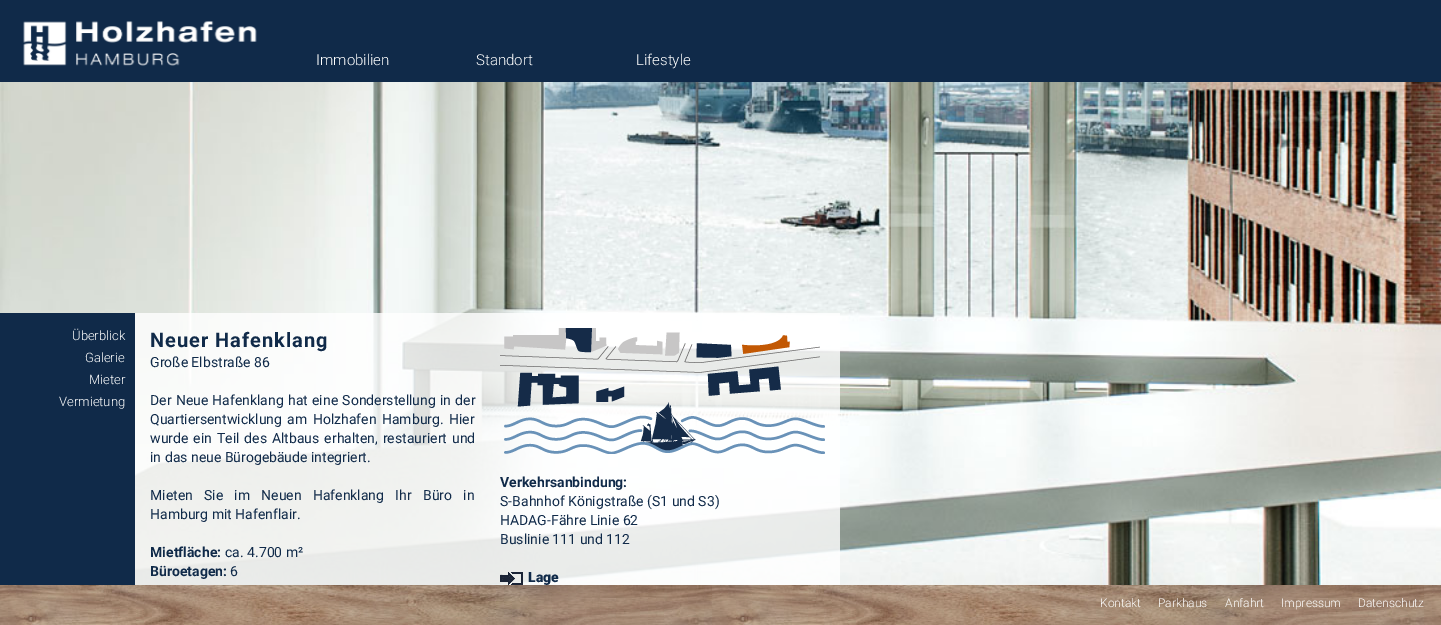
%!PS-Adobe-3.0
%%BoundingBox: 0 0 1441 625
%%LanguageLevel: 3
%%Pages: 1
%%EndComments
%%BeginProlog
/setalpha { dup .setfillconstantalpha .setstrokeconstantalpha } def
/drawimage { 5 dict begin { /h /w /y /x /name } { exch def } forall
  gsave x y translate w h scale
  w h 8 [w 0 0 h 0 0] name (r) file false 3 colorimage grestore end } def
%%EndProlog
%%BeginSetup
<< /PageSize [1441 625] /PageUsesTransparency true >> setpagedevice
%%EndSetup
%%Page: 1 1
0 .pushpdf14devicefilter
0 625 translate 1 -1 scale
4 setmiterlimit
1 setgray
0 0 1441 625 rectfill
0.063 0.165 0.286 setrgbcolor
0 0 1441 82 rectfill
(images/1.raw) 23 21 234 45 drawimage
(images/2.raw) 0 82 1441 503 drawimage
0 313 135 272 rectfill
0.8 setalpha
1 setgray
135 313 705 272 rectfill
1 setalpha
(images/3.raw) 500 328 325 126 drawimage
(images/4.raw) 500 572 23 13 drawimage
(images/5.raw) 0 585 1441 40 drawimage
/Roboto-Light [15 0 0 -15 0 0] selectfont
316 65 moveto (Immobilien) show
476 65 moveto (Standort) show
636 65 moveto (Lifestyle) show
/Roboto-Light [13 0 0 -13 0 0] selectfont
72 340 moveto (Überblick) show
85 362 moveto (Galerie) show
89 384 moveto (Mieter) show
59 406 moveto (Vermietung) show
/Roboto-Bold [20 0 0 -20 0 0] selectfont
0.063 0.165 0.286 setrgbcolor
150 347 moveto 1 0 (Neuer Hafenklang) ashow
/Roboto-Regular [14 0 0 -14 0 0] selectfont
150 367 moveto (Große Elbstraße 86) show
150 405 moveto 0.75 0 32 (Der Neue Hafenklang hat eine Sonderstellung in der) widthshow
150 424 moveto 2 0 32 (Quartiersentwicklung am Holzhafen Hamburg. Hier) widthshow
150 443 moveto 1.5 0 32 (wurde ein Teil des Altbaus erhalten, restauriert und) widthshow
150 462 moveto (in das neue Bürogebäude integriert.) show
150 500 moveto 7.75 0 32 (Mieten Sie im Neuen Hafenklang Ihr Büro in) widthshow
150 519 moveto (Hamburg mit Hafenflair.) show
/Roboto-Bold [14 0 0 -14 0 0] selectfont
150 557 moveto (Mietfläche:) show
/Roboto-Regular [14 0 0 -14 0 0] selectfont
225 557 moveto (ca. 4.700 m²) show
/Roboto-Bold [14 0 0 -14 0 0] selectfont
150 576 moveto (Büroetagen:) show
/Roboto-Regular [14 0 0 -14 0 0] selectfont
230 576 moveto (6) show
/Roboto-Bold [14 0 0 -14 0 0] selectfont
500 487 moveto (Verkehrsanbindung:) show
/Roboto-Regular [14 0 0 -14 0 0] selectfont
500 506 moveto (S-Bahnhof Königstraße \(S1 und S3\)) show
500 525 moveto (HADAG-Fähre Linie 62) show
500 544 moveto (Buslinie 111 und 112) show
/Roboto-Black [14 0 0 -14 0 0] selectfont
528 582 moveto (Lage) show
/Roboto-Light [12 0 0 -12 0 0] selectfont
1 setgray
1100 607 moveto (Kontakt) show
1158 607 moveto (Parkhaus) show
1225 607 moveto (Anfahrt) show
1281 607 moveto (Impressum) show
1358 607 moveto (Datenschutz) show
.poppdf14devicefilter showpage
%%EOF
